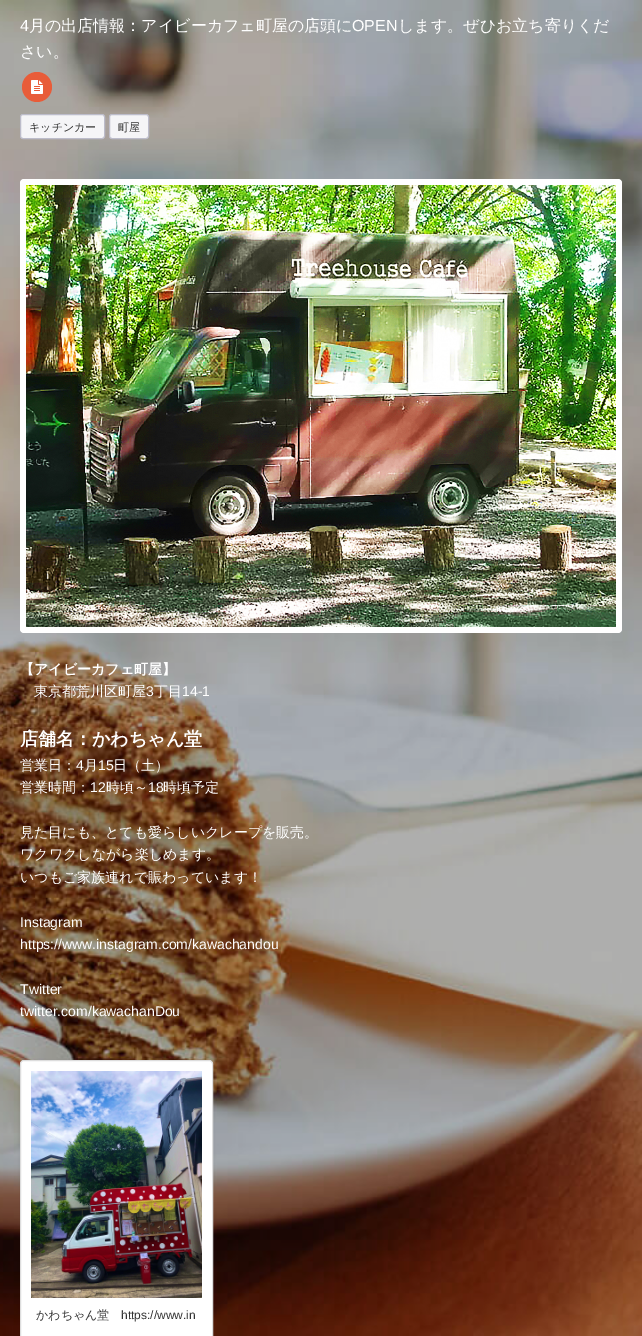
%!PS-Adobe-3.0
%%BoundingBox: 0 0 642 1336
%%LanguageLevel: 3
%%Pages: 1
%%EndComments
%%BeginProlog
/setalpha { dup .setfillconstantalpha .setstrokeconstantalpha } def
/rrect { 5 dict begin { /r /h /w /y /x } { exch def } forall
  x r add y moveto x w add y 2 copy h add r arct x w add y h add x 1 index r arct
  x y h add x y r arct x y 2 copy exch w add exch r arct closepath end } def
/softshadow { 12 dict begin { /a /b /q /h /w /y /x } { exch def } forall gsave /was 0 def
  9 -2 -9 { dup b mul 4 div /e exch def 1 sub .425 mul 2.718 exch exp 1 add a .99 .min exch div /now exch def
    1 1 now sub 1 was sub div sub setalpha /was now def
    w h .min e 2 mul add 0 gt { x e sub y e sub w e 2 mul add h e 2 mul add
      q e add b .6 mul add w h .min 2 div e add .min 0 .max rrect fill } if } for grestore end } def
/drawimage { 5 dict begin { /h /w /y /x /name } { exch def } forall
  gsave x y translate w h scale
  w h 8 [w 0 0 h 0 0] name (r) file false 3 colorimage grestore end } def
%%EndProlog
%%BeginSetup
<< /PageSize [642 1336] /PageUsesTransparency true >> setpagedevice
%%EndSetup
%%Page: 1 1
0 .pushpdf14devicefilter
0 1336 translate 1 -1 scale
4 setmiterlimit
1 setgray
0 0 642 1336 rectfill
(images/1.raw) 0 0 642 1336 drawimage
0.91 0.361 0.224 setrgbcolor
newpath 37 87 15 0 360 arc closepath fill
(images/2.raw) 31 80 12 14 drawimage
0.961 0.961 0.969 setrgbcolor
20.5 114.5 84 24 2.5 rrect gsave fill grestore
0.737 0.737 0.792 setrgbcolor
stroke
0.961 0.961 0.969 setrgbcolor
109.5 114.5 39 24 2.5 rrect gsave fill grestore
0.737 0.737 0.792 setrgbcolor
stroke
1 setgray
20 179 602 454 4 rrect fill
(images/3.raw) 26 185 590 442 drawimage
0 setgray
20 1061 193 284 4 1.5 0.06 softshadow
1 setgray
20.5 1060.5 192 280 3.5 rrect gsave fill grestore
0.867 setgray
stroke
(images/4.raw) 31 1071 171 227 drawimage
/LiberationSans-Regular [16 0 0 -16 0 0] selectfont
1 setgray
20 31 moveto (4) show
/WenQuanYiZenHei-Medium [16 0 0 -16 0 0] selectfont
29 31 moveto (月の出店情報：アイビーカフェ町屋の店頭に) show
/LiberationSans-Regular [16 0 0 -16 0 0] selectfont
352 31 moveto (OPEN) show
/WenQuanYiZenHei-Medium [16 0 0 -16 0 0] selectfont
398 31 moveto (します。ぜひお立ち寄りくだ) show
20 57 moveto (さい。) show
/WenQuanYiZenHei-Medium [11 0 0 -11 0 0] selectfont
0.2 setgray
29 131 moveto (キッチンカー) show
118 131 moveto (町屋) show
/WenQuanYiZenHei-Bold [14 0 0 -14 0 0] selectfont
1 setgray
20 674 moveto (【アイビーカフェ町屋】) show
/WenQuanYiZenHei-Medium [14 0 0 -14 0 0] selectfont
34 696 moveto (東京都荒川区町屋) show
/LiberationSans-Regular [14 0 0 -14 0 0] selectfont
146 696 moveto (3) show
/WenQuanYiZenHei-Medium [14 0 0 -14 0 0] selectfont
154 696 moveto (丁目) show
/LiberationSans-Regular [14 0 0 -14 0 0] selectfont
182 696 moveto (14-1) show
/WenQuanYiZenHei-Bold [18 0 0 -18 0 0] selectfont
20 745 moveto (店舗名：かわちゃん堂) show
/WenQuanYiZenHei-Medium [14 0 0 -14 0 0] selectfont
20 770 moveto (営業日：) show
/LiberationSans-Regular [14 0 0 -14 0 0] selectfont
76 770 moveto (4) show
/WenQuanYiZenHei-Medium [14 0 0 -14 0 0] selectfont
84 770 moveto (月) show
/LiberationSans-Regular [14 0 0 -14 0 0] selectfont
98 770 moveto (15) show
/WenQuanYiZenHei-Medium [14 0 0 -14 0 0] selectfont
113 770 moveto (日（土）) show
20 792 moveto (営業時間：) show
/LiberationSans-Regular [14 0 0 -14 0 0] selectfont
90 792 moveto (12) show
/WenQuanYiZenHei-Medium [14 0 0 -14 0 0] selectfont
106 792 moveto (時頃～) show
/LiberationSans-Regular [14 0 0 -14 0 0] selectfont
148 792 moveto (18) show
/WenQuanYiZenHei-Medium [14 0 0 -14 0 0] selectfont
163 792 moveto (時頃予定) show
20 837 moveto (見た目にも、とても愛らしいクレープを販売。) show
20 859 moveto (ワクワクしながら楽しめます。) show
20 882 moveto (いつもご家族連れで賑わっています！) show
/LiberationSans-Regular [14 0 0 -14 0 0] selectfont
20 927 moveto (Instagram) show
20 949 moveto (https://www.instagram.com/kawachandou) show
20 994 moveto (Twitter) show
20 1016 moveto (twitter.com/kawachanDou) show
/WenQuanYiZenHei-Medium [12 0 0 -12 0 0] selectfont
0.2 setgray
36 1319 moveto (かわちゃん堂) show
/LiberationSans-Regular [12 0 0 -12 0 0] selectfont
121 1319 moveto (https://www.in) show
.poppdf14devicefilter showpage
%%EOF
